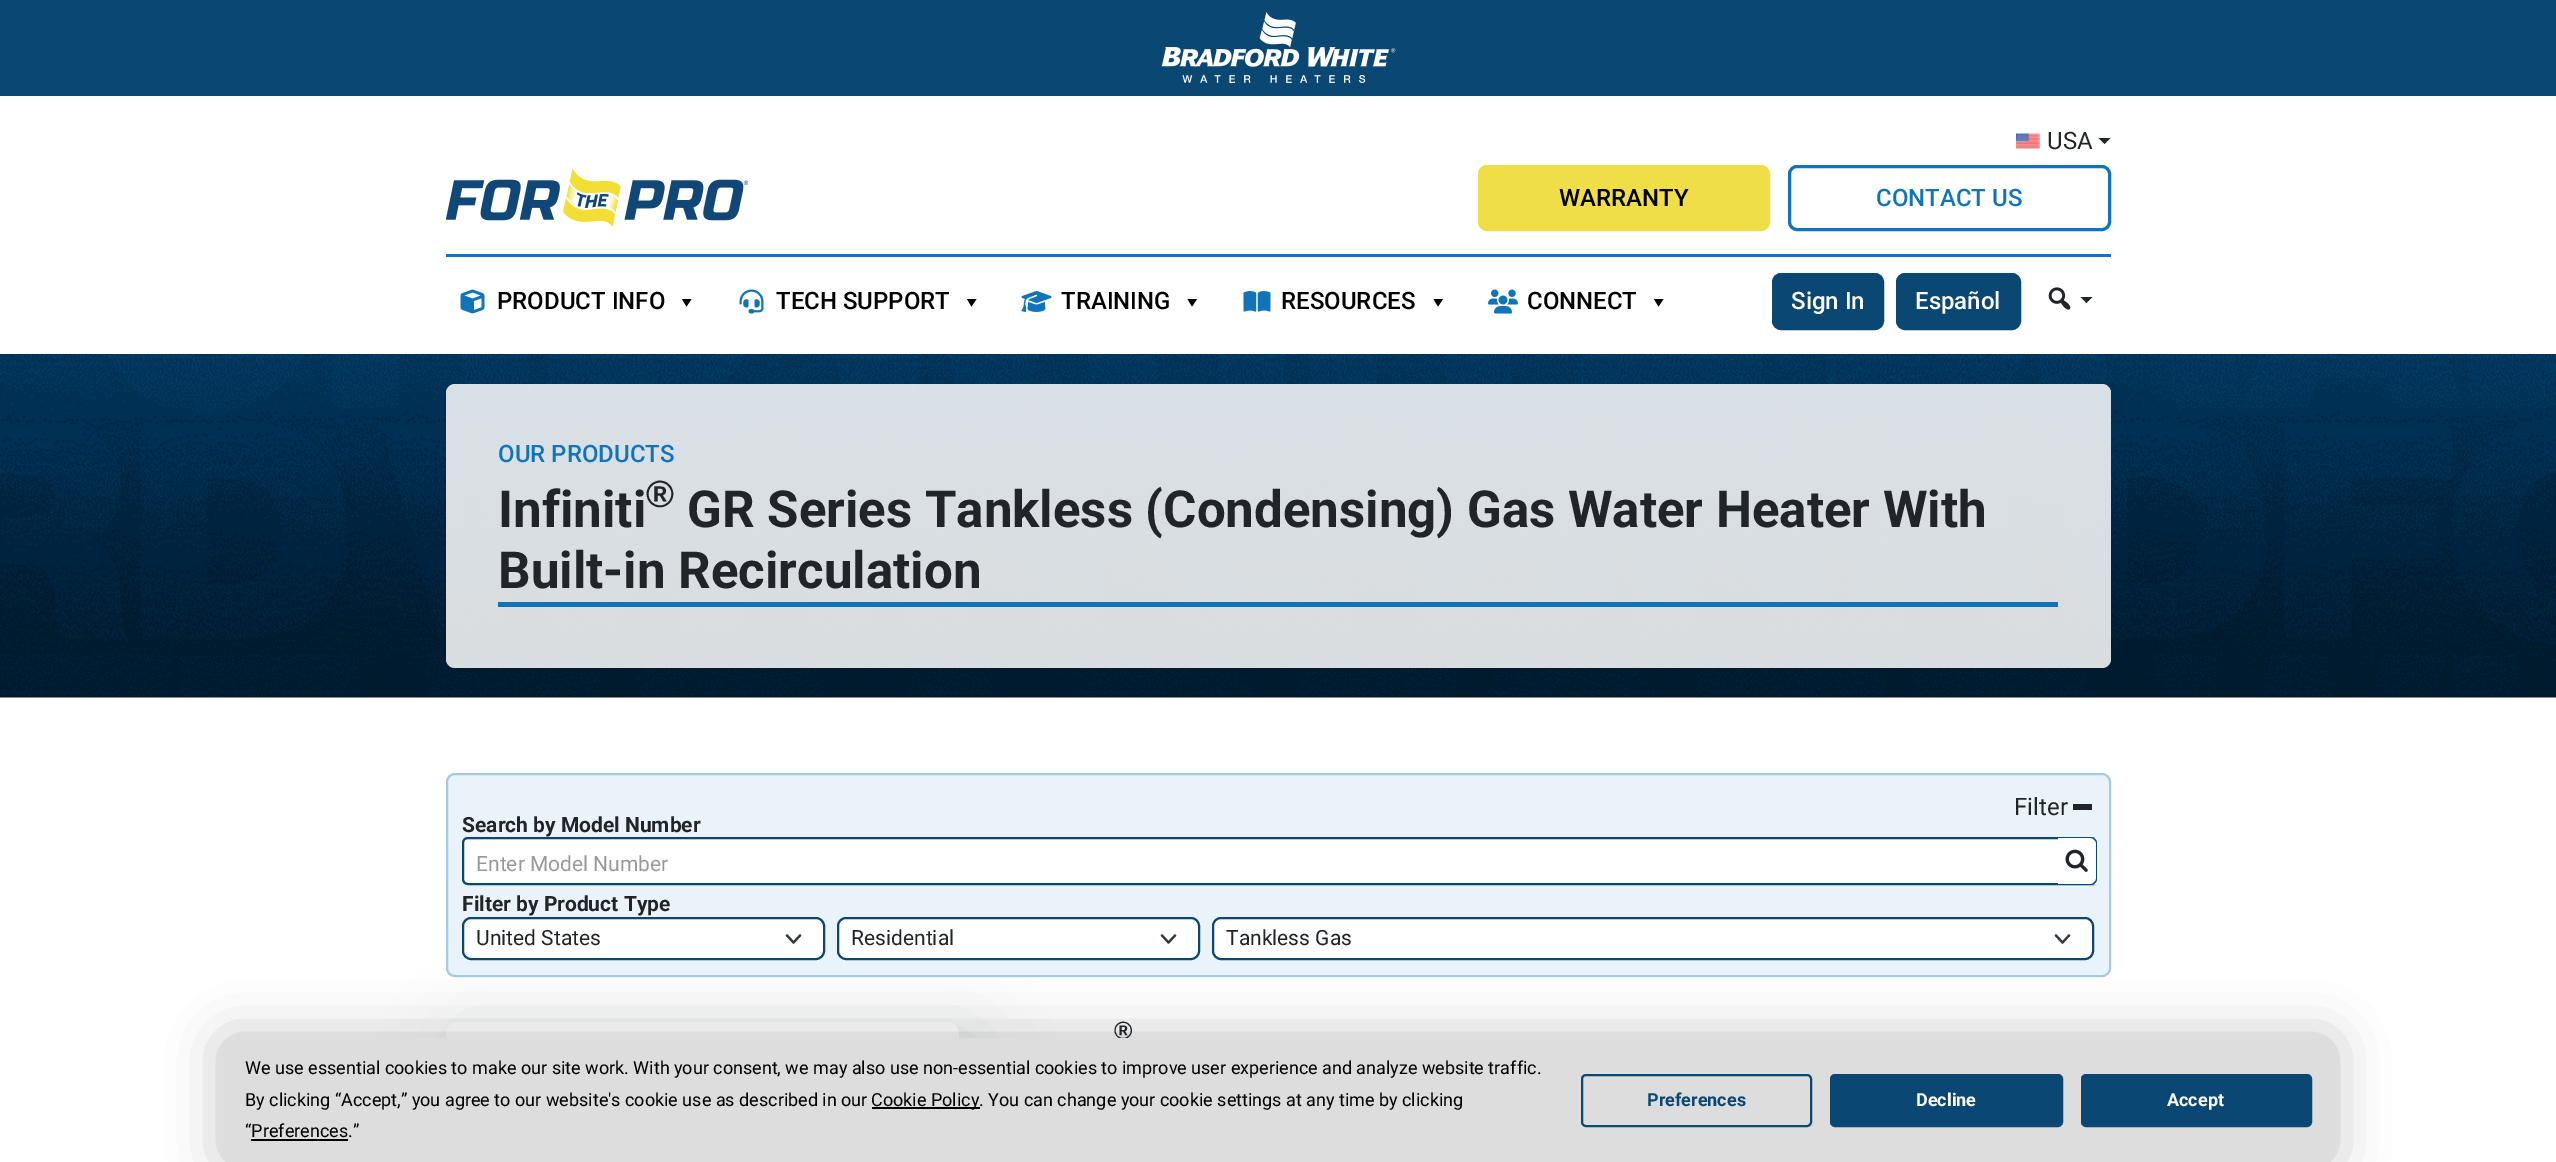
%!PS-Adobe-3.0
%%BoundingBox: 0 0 2556 1162
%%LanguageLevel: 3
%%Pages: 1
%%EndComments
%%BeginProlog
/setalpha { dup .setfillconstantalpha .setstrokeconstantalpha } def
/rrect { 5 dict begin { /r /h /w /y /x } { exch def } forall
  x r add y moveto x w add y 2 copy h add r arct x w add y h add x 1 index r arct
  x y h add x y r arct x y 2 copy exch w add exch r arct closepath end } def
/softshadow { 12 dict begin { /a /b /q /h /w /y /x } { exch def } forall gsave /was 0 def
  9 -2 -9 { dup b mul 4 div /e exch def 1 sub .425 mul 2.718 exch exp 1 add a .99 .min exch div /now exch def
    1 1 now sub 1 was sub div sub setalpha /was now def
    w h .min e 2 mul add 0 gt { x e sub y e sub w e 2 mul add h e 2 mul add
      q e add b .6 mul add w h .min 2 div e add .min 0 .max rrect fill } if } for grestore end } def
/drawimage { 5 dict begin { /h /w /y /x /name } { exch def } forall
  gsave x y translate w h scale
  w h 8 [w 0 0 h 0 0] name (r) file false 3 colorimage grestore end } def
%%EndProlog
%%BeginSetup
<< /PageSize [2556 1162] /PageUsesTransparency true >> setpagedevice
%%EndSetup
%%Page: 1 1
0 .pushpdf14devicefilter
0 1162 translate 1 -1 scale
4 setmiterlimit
1 setgray
0 0 2556 1162 rectfill
0.039 0.278 0.447 setrgbcolor
0 0 2556 96 rectfill
(images/1.raw) 1161 12 235 71 drawimage
0.067 0.455 0.725 setrgbcolor
446 254 1665 3 rectfill
(images/2.raw) 2016 133 24 16 drawimage
0.129 0.145 0.161 setrgbcolor
newpath 2098.5 138 moveto 2110.5 138 lineto 2104.5 144 lineto closepath fill
(images/3.raw) 446 168 302 59 drawimage
0.937 0.871 0.282 setrgbcolor
1479 166 290 64 8 rrect gsave fill grestore
2 setlinewidth
stroke
0.067 0.455 0.725 setrgbcolor
3 setlinewidth
1789.5 166.5 320 63 7.5 rrect stroke
(images/4.raw) 460 289 25 25 drawimage
0 setgray
newpath 691.5 299 moveto 686.5 306.5 lineto 682 299 lineto closepath fill
(images/5.raw) 739 289 25 25 drawimage
newpath 976.5 299 moveto 971.5 306.5 lineto 967 299 lineto closepath fill
(images/6.raw) 1021 291 31 21 drawimage
newpath 1197 299 moveto 1192 306.5 lineto 1187.5 299 lineto closepath fill
(images/7.raw) 1243 291 28 21 drawimage
newpath 1443 299 moveto 1438 306.5 lineto 1433.5 299 lineto closepath fill
(images/8.raw) 1488 289 30 25 drawimage
newpath 1663.5 299 moveto 1658.5 306.5 lineto 1654 299 lineto closepath fill
0.039 0.278 0.447 setrgbcolor
1773 274 110 55 8 rrect gsave fill grestore
2 setlinewidth
stroke
1897 274 123 55 8 rrect gsave fill grestore
stroke
(images/9.raw) 2048 287 23 23 drawimage
0.129 0.145 0.161 setrgbcolor
newpath 2080.5 297 moveto 2092.5 297 lineto 2086.5 303 lineto closepath fill
(images/10.raw) 0 354 2556 344 drawimage
0.85 setalpha
1 setgray
446 384 1665 284 9 rrect fill
1 setalpha
0.067 0.455 0.725 setrgbcolor
498 602 1560 5 rectfill
gsave
newpath 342 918 moveto 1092 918 lineto 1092 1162 lineto 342 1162 lineto closepath 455 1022 moveto 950 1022 lineto 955 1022 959 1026 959 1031 curveto 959 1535 lineto 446 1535 lineto 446 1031 lineto 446 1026 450 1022 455 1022 curveto closepath eoclip newpath
0.035 0.129 0.224 setrgbcolor
456 1032 522 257 14 37.5 0.1 softshadow
grestore
0.918 0.953 0.976 setrgbcolor
446 773 1665 204 9 rrect fill
0.32 setalpha
0.067 0.455 0.725 setrgbcolor
447 774 1663 202 8 rrect stroke
1 setalpha
0.129 0.145 0.161 setrgbcolor
2073 804 19 6 rectfill
1 setgray
newpath 468 838 moveto 2093 838 lineto 2093 884 lineto 468 884 lineto 465 884 463 882 463 879 curveto 463 843 lineto 463 840 465 838 468 838 curveto closepath gsave fill grestore
0.039 0.278 0.447 setrgbcolor
stroke
1 setgray
newpath 2058 837 moveto 2091 837 lineto 2094.5 837 2097 839.5 2097 843 curveto 2097 879 lineto 2097 882.5 2094.5 885 2091 885 curveto 2058 885 lineto closepath fill
0.039 0.278 0.447 setrgbcolor
newpath 2058 837 moveto 2091 837 lineto 2094 837 2097 840 2097 843 curveto 2097 879 lineto 2097 882 2094 885 2091 885 curveto 2058 885 lineto closepath 2058 838 moveto 2091 838 lineto 2093 838 2096 841 2096 843 curveto 2096 879 lineto 2096 881 2093 884 2091 884 curveto 2058 884 lineto closepath eofill
(images/11.raw) 2065 849 23 23 drawimage
1 setgray
462 917 363 43 9 rrect fill
0.204 0.227 0.251 setrgbcolor
2.2 setlinewidth
1 setlinecap
1 setlinejoin
newpath 787 935.5 moveto 793.5 942.5 lineto 800 935.5 lineto stroke
0.039 0.278 0.447 setrgbcolor
2 setlinewidth
0 setlinecap
0 setlinejoin
463 918 361 41 8 rrect stroke
1 setgray
837 917 363 43 9 rrect fill
0.204 0.227 0.251 setrgbcolor
2.2 setlinewidth
1 setlinecap
1 setlinejoin
newpath 1162 935.5 moveto 1168.5 942.5 lineto 1175 935.5 lineto stroke
0.039 0.278 0.447 setrgbcolor
2 setlinewidth
0 setlinecap
0 setlinejoin
838 918 361 41 8 rrect stroke
1 setgray
1212 917 882 43 9 rrect fill
0.204 0.227 0.251 setrgbcolor
2.2 setlinewidth
1 setlinecap
1 setlinejoin
newpath 2056 935.5 moveto 2062.5 942.5 lineto 2069 935.5 lineto stroke
0.039 0.278 0.447 setrgbcolor
2 setlinewidth
0 setlinecap
0 setlinejoin
1213 918 880 41 8 rrect stroke
0 setgray
222 1038 2112 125 8 26 0.25 softshadow
/Roboto-Regular [24 0 0 -24 0 0] selectfont
0.129 0.145 0.161 setrgbcolor
2047 149 moveto (USA) show
/Roboto-Medium [24 0 0 -24 0 0] selectfont
0 setgray
1559 206 moveto (WARRANTY) show
0.067 0.455 0.725 setrgbcolor
1876 206 moveto (CONTACT US) show
0 setgray
497 309 moveto (PRODUCT INFO) show
776 309 moveto (TECH SUPPORT) show
1061 309 moveto (TRAINING) show
1281 309 moveto (RESOURCES) show
1527 309 moveto (CONNECT) show
1 setgray
1791 309 moveto (Sign In) show
1915 309 moveto (Español) show
0.067 0.455 0.725 setrgbcolor
498 462 moveto (OUR PRODUCTS) show
/Roboto-Bold [51 0 0 -51 0 0] selectfont
0.129 0.145 0.161 setrgbcolor
498 527 moveto (Infiniti) show
/LiberationSans-Bold [38 0 0 -38 0 0] selectfont
646 507 moveto (®) show
/Roboto-Bold [51 0 0 -51 0 0] selectfont
687 527 moveto (GR Series Tankless \(Condensing\) Gas Water Heater With) show
498 588 moveto (Built-in Recirculation) show
/Roboto-Regular [24 0 0 -24 0 0] selectfont
2014 815 moveto (Filter) show
/Roboto-Bold [21 0 0 -21 0 0] selectfont
462 832 moveto (Search by Model Number) show
/Roboto-Regular [21 0 0 -21 0 0] selectfont
0.6 setgray
476 871 moveto (Enter Model Number) show
/Roboto-Bold [21 0 0 -21 0 0] selectfont
0.129 0.145 0.161 setrgbcolor
462 911 moveto (Filter by Product Type) show
/Roboto-Regular [21 0 0 -21 0 0] selectfont
476 945 moveto (United States) show
851 945 moveto (Residential) show
1226 945 moveto (Tankless Gas) show
/LiberationSans-Bold [25 0 0 -25 0 0] selectfont
1114 1039 moveto (®) show
0.867 setgray
222 1038 2112 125 8 rrect fill
/Roboto-Regular [18 0 0 -18 0 0] selectfont
0 setgray
245 1074 moveto (We use essential cookies to make our site work. With your consent, we may also use non-essential cookies to improve user experience and analyze website traffic.) show
245 1106 moveto (By clicking “Accept,” you agree to our website's cookie use as described in our) show
872 1107 108 2 rectfill
871 1106 moveto (Cookie Policy. You can change your cookie settings at any time by clicking) show
245 1137 moveto (“Preferences.”) show
251 1139 97 2 rectfill
0.039 0.278 0.447 setrgbcolor
1582 1075 229 51 4 rrect stroke
/Roboto-Bold [18 0 0 -18 0 0] selectfont
1647 1106 moveto (Preferences) show
1831 1075 231 51 4 rrect gsave fill grestore
stroke
1 setgray
1916 1106 moveto (Decline) show
0.039 0.278 0.447 setrgbcolor
2082 1075 229 51 4 rrect gsave fill grestore
stroke
1 setgray
2167 1106 moveto (Accept) show
.poppdf14devicefilter showpage
%%EOF
